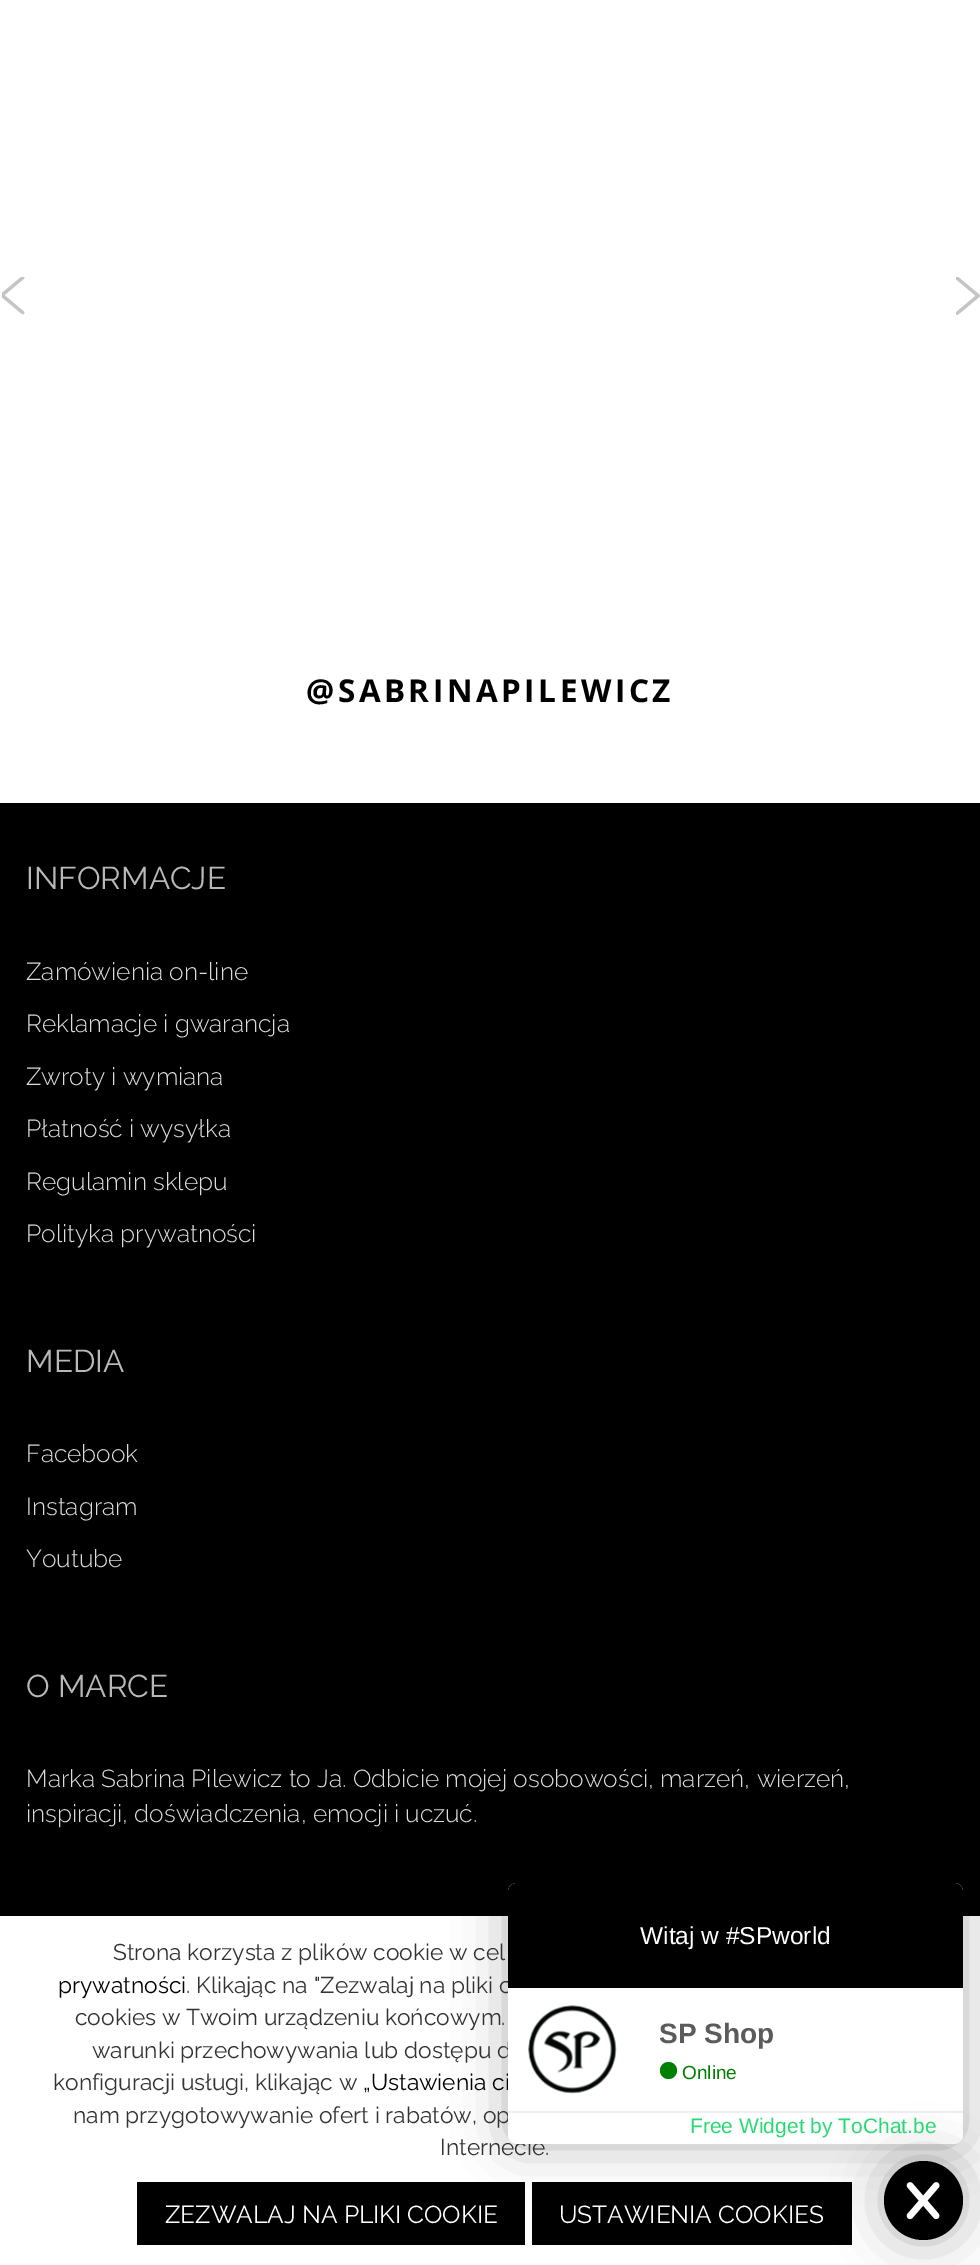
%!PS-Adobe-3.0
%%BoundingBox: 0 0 980 2265
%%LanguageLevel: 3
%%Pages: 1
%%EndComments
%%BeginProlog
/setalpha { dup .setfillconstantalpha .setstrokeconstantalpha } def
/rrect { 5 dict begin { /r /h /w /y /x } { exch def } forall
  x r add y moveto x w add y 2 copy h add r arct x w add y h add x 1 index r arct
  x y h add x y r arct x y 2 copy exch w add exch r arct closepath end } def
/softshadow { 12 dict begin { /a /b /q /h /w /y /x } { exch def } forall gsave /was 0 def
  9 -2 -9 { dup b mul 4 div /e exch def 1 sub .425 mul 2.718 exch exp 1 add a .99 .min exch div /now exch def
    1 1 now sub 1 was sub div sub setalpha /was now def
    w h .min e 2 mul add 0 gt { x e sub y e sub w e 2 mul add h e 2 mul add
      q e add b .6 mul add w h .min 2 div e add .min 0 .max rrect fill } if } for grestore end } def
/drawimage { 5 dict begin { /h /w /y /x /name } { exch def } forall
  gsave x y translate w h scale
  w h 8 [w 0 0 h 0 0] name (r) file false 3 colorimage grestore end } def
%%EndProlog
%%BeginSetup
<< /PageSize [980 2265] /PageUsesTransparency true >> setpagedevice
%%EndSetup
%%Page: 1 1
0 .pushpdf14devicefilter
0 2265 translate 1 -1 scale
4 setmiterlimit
1 setgray
0 0 980 2265 rectfill
(images/1.raw) 2 277 23 38 drawimage
(images/2.raw) 956 277 24 38 drawimage
0 setgray
0 803 980 1113 rectfill
-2 1904 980 350 0 21 0.2 softshadow
1 setgray
0 1916 980 349 rectfill
0 setgray
137 2182 388 63 rectfill
532 2182 320 63 rectfill
508 1883 455 261 9 26 0.3 softshadow
/OpenSans-Bold [31.5 0 0 -31.5 0 0] selectfont
306 702 moveto 3.5 0 (@SABRINAPILEWICZ) ashow
/Raleway-Thin [31.5 0 0 -31.5 0 0] selectfont
0.722 0.722 0.729 setrgbcolor
26 889 moveto (INFORMACJE) show
/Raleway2-Thin [24.5 0 0 -24.5 0 0] selectfont
0.867 setgray
26 980 moveto (Zamówienia on-line) show
26 1032 moveto (Reklamacje i gwarancja) show
26 1085 moveto (Zwroty i wymiana) show
26 1137 moveto (Płatność i wysyłka) show
26 1190 moveto (Regulamin sklepu) show
26 1242 moveto (Polityka prywatności) show
/Raleway-Thin [31.5 0 0 -31.5 0 0] selectfont
0.722 0.722 0.729 setrgbcolor
26 1372 moveto (MEDIA) show
/Raleway2-Thin [24.5 0 0 -24.5 0 0] selectfont
0.867 setgray
26 1462 moveto (Facebook) show
26 1515 moveto (Instagram) show
26 1567 moveto (Youtube) show
/Raleway-Thin [31.5 0 0 -31.5 0 0] selectfont
0.722 0.722 0.729 setrgbcolor
26 1697 moveto (O MARCE) show
/Raleway2-Thin [24.5 0 0 -24.5 0 0] selectfont
0.867 setgray
26 1787 moveto (Marka Sabrina Pilewicz to Ja. Odbicie mojej osobowości, marzeń, wierzeń,) show
26 1822 moveto (inspiracji, doświadczenia, emocji i uczuć.) show
/Raleway-Thin [22.75 0 0 -22.75 0 0] selectfont
0.2 setgray
113 1960 moveto (Strona korzysta z plików cookie w cel) show
0 setgray
58 1993 moveto (prywatności) show
0.2 setgray
186 1993 moveto (. Klikając na "Zezwalaj na pliki c) show
75 2025 moveto (cookies w Twoim urządzeniu końcowym.) show
92 2058 moveto (warunki przechowywania lub dostępu d) show
53 2090 moveto (konfiguracji usługi, klikając w) show
0 setgray
363 2090 moveto („Ustawienia ci) show
0.2 setgray
73 2123 moveto (nam przygotowywanie ofert i rabatów, op) show
440 2155 moveto (Internecie.) show
1 setgray
508 1883 455 261 9 rrect fill
0.937 setgray
508 2111 455 2 rectfill
0 setgray
884 2161 79 79 39.5 26 0.3 softshadow
newpath 923.5 2200.5 39.5 0 360 arc closepath fill
(images/4.raw) 906 2182 34 38 drawimage
newpath 517 1883 moveto 954 1883 lineto 959 1883 963 1887 963 1892 curveto 963 1988 lineto 508 1988 lineto 508 1892 lineto 508 1887 512 1883 517 1883 curveto closepath fill
/LiberationSans-Regular [24.5 0 0 -24.5 0 0] selectfont
1 setgray
640 1944 moveto (Witaj w #SPworld) show
(images/3.raw) 528 2005 89 89 drawimage
/LiberationSans-Bold [28 0 0 -28 0 0] selectfont
0.361 0.357 0.357 setrgbcolor
659 2043 moveto (SP Shop) show
/LiberationSans-Regular [19 0 0 -19 0 0] selectfont
0 0.502 0 setrgbcolor
682 2079 moveto (Online) show
newpath 668.5 2070.5 8.5 0 360 arc closepath fill
/LiberationSans-Regular [21 0 0 -21 0 0] selectfont
0.161 0.851 0.455 setrgbcolor
690 2133 moveto (Free Widget by ToChat.be) show
/Raleway-Thin [24.5 0 0 -24.5 0 0] selectfont
1 setgray
165 2223 moveto (ZEZWALAJ NA PLIKI COOKIE) show
559 2223 moveto (USTAWIENIA COOKIES) show
.poppdf14devicefilter showpage
%%EOF
